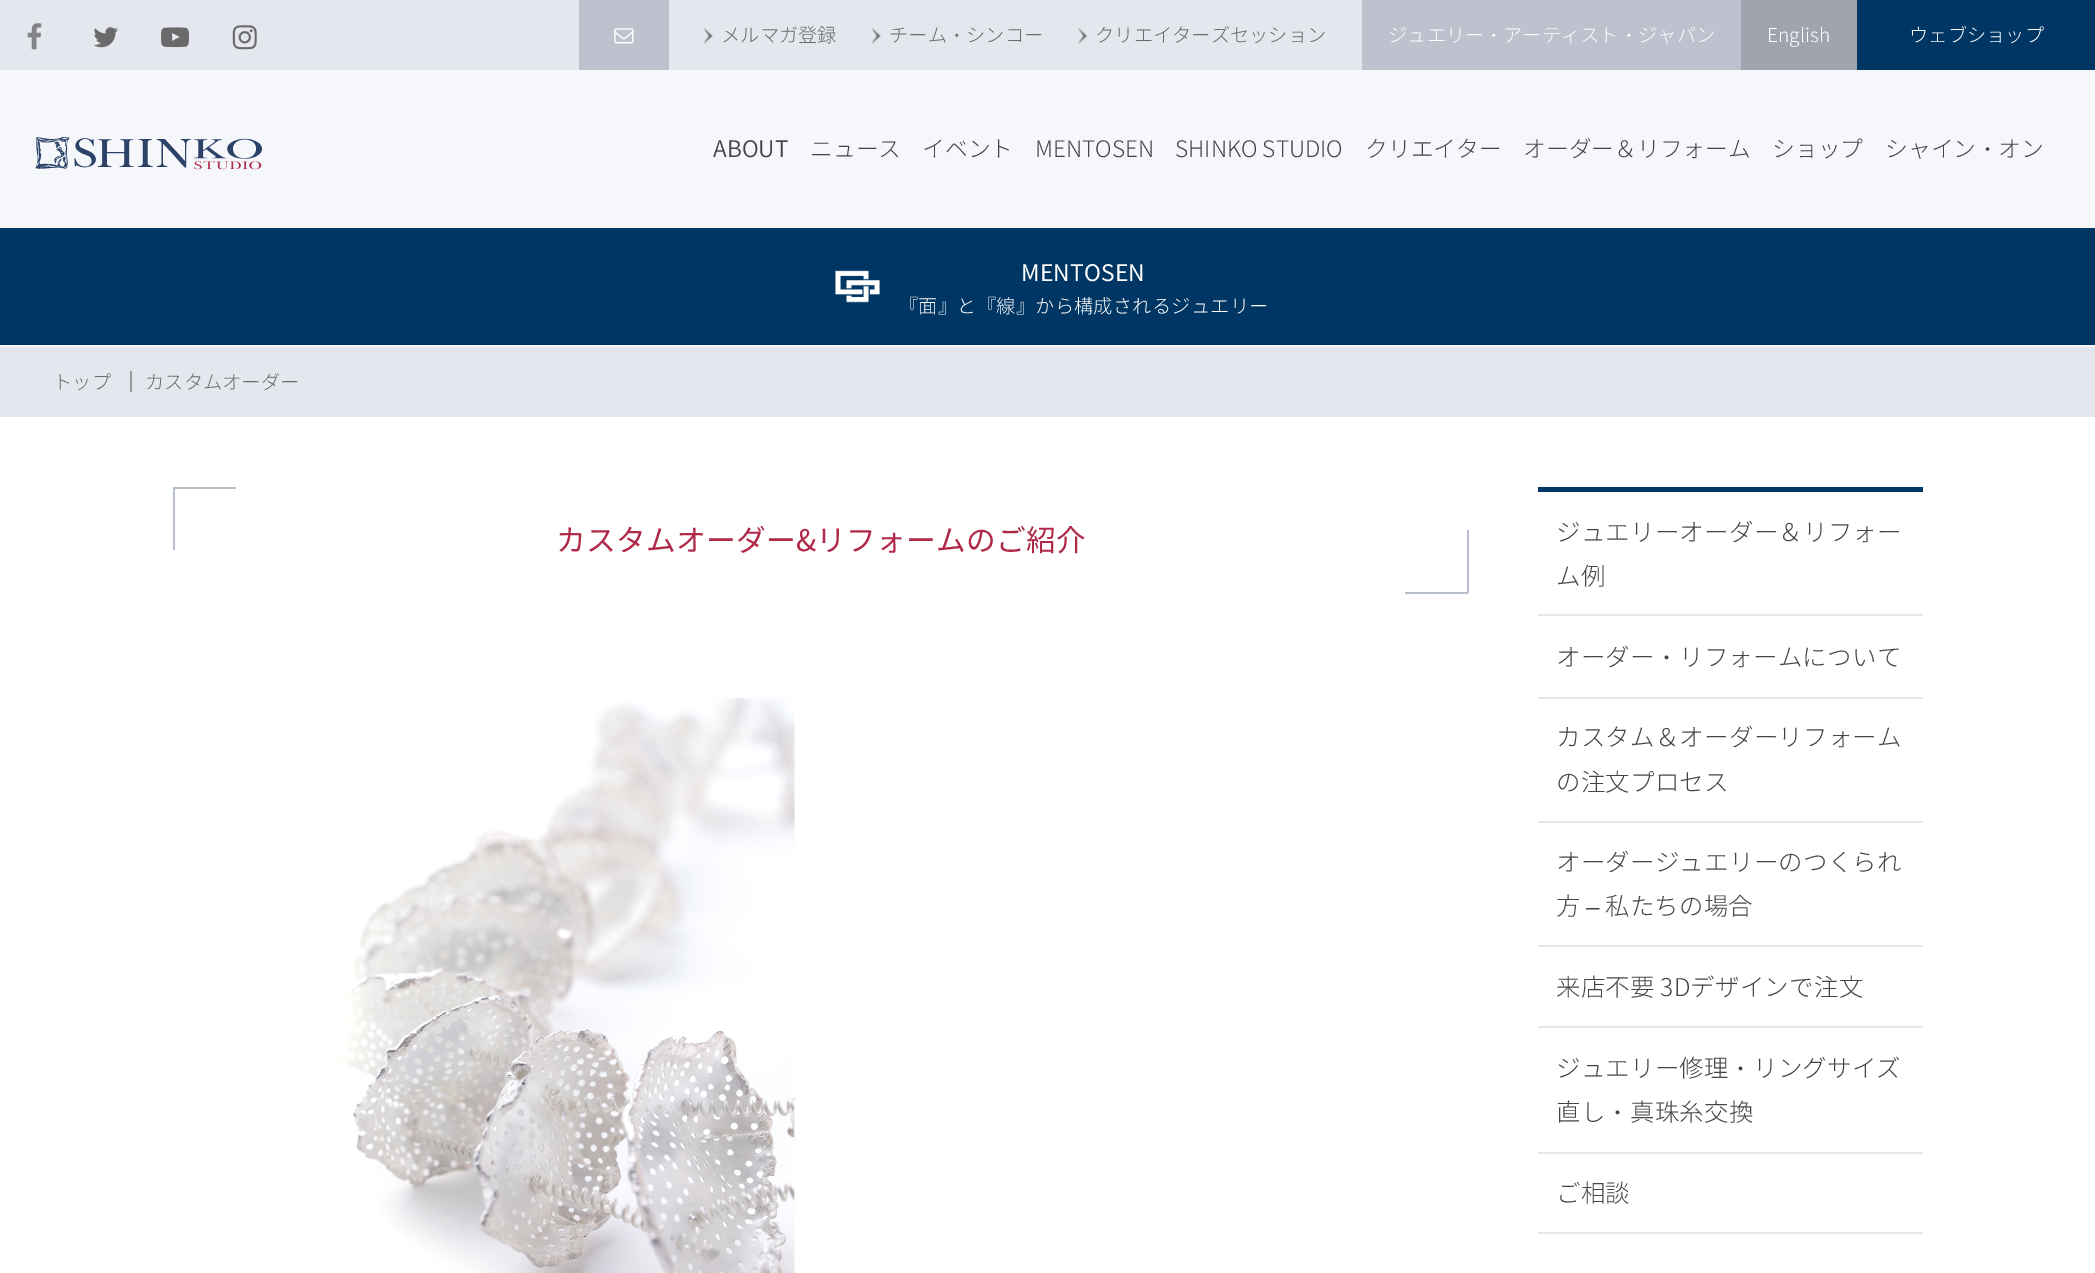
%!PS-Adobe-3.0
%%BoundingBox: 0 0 2095 1273
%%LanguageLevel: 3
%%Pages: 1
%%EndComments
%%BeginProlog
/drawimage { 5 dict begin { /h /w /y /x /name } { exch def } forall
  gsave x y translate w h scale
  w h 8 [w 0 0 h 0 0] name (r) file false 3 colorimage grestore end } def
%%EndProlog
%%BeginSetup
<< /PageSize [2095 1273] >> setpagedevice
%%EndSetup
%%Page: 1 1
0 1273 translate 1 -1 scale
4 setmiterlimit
1 setgray
0 0 2095 1273 rectfill
0.961 0.969 0.984 setrgbcolor
0 70 2095 158 rectfill
0.894 0.906 0.933 setrgbcolor
0 0 1362 70 rectfill
(images/1.raw) 27 23 15 27 drawimage
(images/2.raw) 93 27 25 21 drawimage
(images/3.raw) 161 27 28 21 drawimage
(images/4.raw) 232 25 25 25 drawimage
0.741 0.761 0.808 setrgbcolor
579 0 90 70 rectfill
(images/5.raw) 614 28 20 16 drawimage
(images/6.raw) 703 28 10 16 drawimage
(images/7.raw) 871 28 10 16 drawimage
(images/8.raw) 1078 28 9 16 drawimage
1362 0 379 70 rectfill
0.627 0.643 0.682 setrgbcolor
1741 0 116 70 rectfill
0 0.212 0.388 setrgbcolor
1857 0 238 70 rectfill
(images/9.raw) 35 137 227 33 drawimage
0 228 2095 117 rectfill
(images/10.raw) 835 270 46 33 drawimage
0.894 0.906 0.933 setrgbcolor
0 347 2095 70 rectfill
0.961 0.969 0.984 setrgbcolor
0 345 2095 2 rectfill
0.6 setgray
130 371 2 21 rectfill
0.718 0.745 0.796 setrgbcolor
173 487 63 2 rectfill
173 487 2 63 rectfill
1467 530 2 63 rectfill
1405 592 63 2 rectfill
(images/11.raw) 338 698 457 575 drawimage
0 0.212 0.388 setrgbcolor
1538 487 385 5 rectfill
0.894 0.906 0.933 setrgbcolor
1538 614 385 2 rectfill
1538 697 385 2 rectfill
1538 821 385 2 rectfill
1538 945 385 2 rectfill
1538 1026 385 2 rectfill
1538 1152 385 2 rectfill
1538 1232 385 2 rectfill
/NotoSansCJKJP-Light [19.25 0 0 -19.25 0 0] selectfont
0.416 setgray
721 42 moveto (メルマガ登録) show
889 42 moveto (チーム) show
/WenQuanYiZenHei-Medium [19.25 0 0 -19.25 0 0] selectfont
947 42 moveto (・) show
/NotoSansCJKJP-Light [19.25 0 0 -19.25 0 0] selectfont
966 42 moveto (シンコー) show
1095 42 moveto (クリエイターズセッション) show
1 setgray
1388 42 moveto (ジュエリー) show
/WenQuanYiZenHei-Medium [19.25 0 0 -19.25 0 0] selectfont
1484 42 moveto (・) show
/NotoSansCJKJP-Light [19.25 0 0 -19.25 0 0] selectfont
1503 42 moveto (アーティスト) show
/WenQuanYiZenHei-Medium [19.25 0 0 -19.25 0 0] selectfont
1619 42 moveto (・) show
/NotoSansCJKJP-Light [19.25 0 0 -19.25 0 0] selectfont
1638 42 moveto (ジャパン) show
1767 42 moveto (English) show
1909 42 moveto (ウェブショップ) show
/NotoSansJP-Light [22.75 0 0 -22.75 0 0] selectfont
0.271 setgray
713 157 moveto (ABOUT) show
/NotoSansCJKJP-Light [22.75 0 0 -22.75 0 0] selectfont
810 157 moveto (ニュース) show
922 157 moveto (イベント) show
1035 157 moveto (MENTOSEN) show
1175 157 moveto (SHINKO STUDIO) show
1365 157 moveto (クリエイター) show
1523 157 moveto (オーダー＆リフォーム) show
1772 157 moveto (ショップ) show
1885 157 moveto (シャイン) show
/WenQuanYiZenHei-Medium [22.75 0 0 -22.75 0 0] selectfont
1976 157 moveto (・) show
/NotoSansCJKJP-Light [22.75 0 0 -22.75 0 0] selectfont
1998 157 moveto (オン) show
/NotoSansCJKJP-Regular [22.75 0 0 -22.75 0 0] selectfont
1 setgray
1021 281 moveto 0.2 0 (MENTOSEN) ashow
/NotoSansCJKJP-Light [19.25 0 0 -19.25 0 0] selectfont
899 313 moveto 0.2 0 (『面』と『線』から構成されるジュエリー) ashow
0.416 setgray
53 389 moveto (トップ) show
145 389 moveto (カスタムオーダー) show
/NotoSansCJKJP-Regular [29.75 0 0 -29.75 0 0] selectfont
0.69 0.161 0.282 setrgbcolor
556 551 moveto 0.2 0 (カスタムオーダー&リフォームのご紹介) ashow
/NotoSansCJKJP-Light [24.5 0 0 -24.5 0 0] selectfont
0.271 setgray
1556 541 moveto 0.2 0 (ジュエリーオーダー＆リフォー) ashow
1556 585 moveto 0.2 0 (ム例) ashow
1556 666 moveto 0.2 0 (オーダー) ashow
/WenQuanYiZenHei-Medium [24.5 0 0 -24.5 0 0] selectfont
1654 666 moveto 0.2 0 (・) ashow
/NotoSansCJKJP-Light [24.5 0 0 -24.5 0 0] selectfont
1679 666 moveto 0.2 0 (リフォームについて) ashow
1556 746 moveto 0.2 0 (カスタム＆オーダーリフォーム) ashow
1556 791 moveto 0.2 0 (の注文プロセス) ashow
1556 871 moveto 0.2 0 (オーダージュエリーのつくられ) ashow
1556 915 moveto 0.2 0 (方) ashow
/LiberationSans-Regular [24.5 0 0 -24.5 0 0] selectfont
1586 915 moveto 0.2 0 (–) ashow
/NotoSansCJKJP-Light [24.5 0 0 -24.5 0 0] selectfont
1605 915 moveto 0.2 0 (私たちの場合) ashow
1556 996 moveto 0.2 0 (来店不要 3Dデザインで注文) ashow
1556 1077 moveto 0.2 0 (ジュエリー修理) ashow
/WenQuanYiZenHei-Medium [24.5 0 0 -24.5 0 0] selectfont
1728 1077 moveto 0.2 0 (・) ashow
/NotoSansCJKJP-Light [24.5 0 0 -24.5 0 0] selectfont
1753 1077 moveto 0.2 0 (リングサイズ) ashow
1556 1121 moveto 0.2 0 (直し) ashow
/WenQuanYiZenHei-Medium [24.5 0 0 -24.5 0 0] selectfont
1605 1121 moveto 0.2 0 (・) ashow
/NotoSansCJKJP-Light [24.5 0 0 -24.5 0 0] selectfont
1630 1121 moveto 0.2 0 (真珠糸交換) ashow
1556 1202 moveto 0.2 0 (ご相談) ashow
showpage
%%EOF
